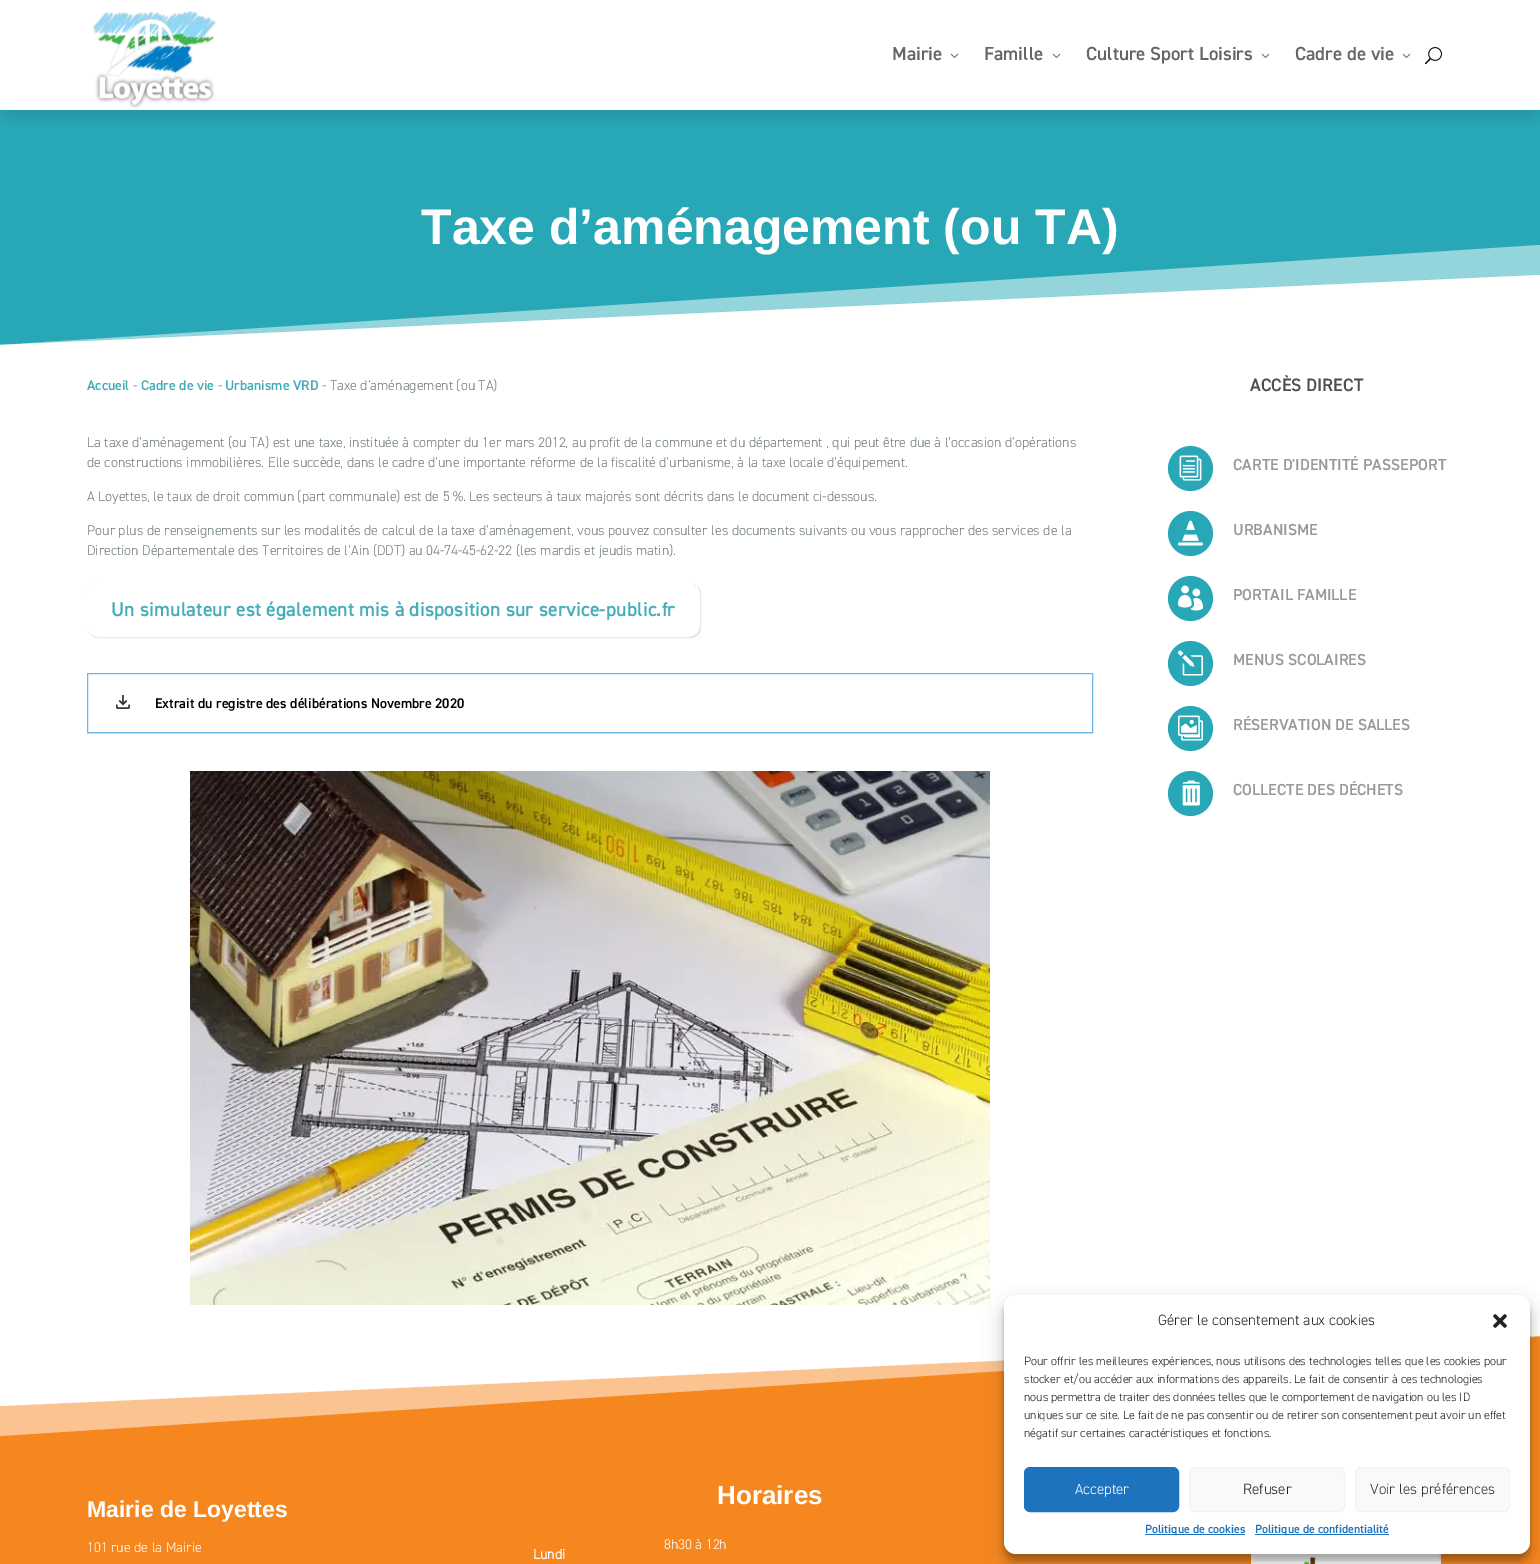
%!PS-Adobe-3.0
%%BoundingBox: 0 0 1540 1564
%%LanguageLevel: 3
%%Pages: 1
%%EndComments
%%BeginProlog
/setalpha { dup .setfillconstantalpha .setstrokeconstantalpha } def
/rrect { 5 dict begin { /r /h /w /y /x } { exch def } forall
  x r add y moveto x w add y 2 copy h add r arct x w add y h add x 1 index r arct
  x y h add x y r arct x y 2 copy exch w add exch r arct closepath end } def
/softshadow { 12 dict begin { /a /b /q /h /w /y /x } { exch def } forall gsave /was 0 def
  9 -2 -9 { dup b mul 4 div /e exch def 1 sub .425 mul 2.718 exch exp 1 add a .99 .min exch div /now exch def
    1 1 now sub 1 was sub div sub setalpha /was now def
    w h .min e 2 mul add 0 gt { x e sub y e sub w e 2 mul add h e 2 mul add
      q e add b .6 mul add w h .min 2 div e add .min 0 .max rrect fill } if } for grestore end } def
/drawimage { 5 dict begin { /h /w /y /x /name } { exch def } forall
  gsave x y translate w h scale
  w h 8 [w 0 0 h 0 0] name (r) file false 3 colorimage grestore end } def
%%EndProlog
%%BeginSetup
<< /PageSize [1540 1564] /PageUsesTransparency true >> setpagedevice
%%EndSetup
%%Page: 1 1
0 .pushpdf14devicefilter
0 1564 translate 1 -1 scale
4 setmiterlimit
1 setgray
0 0 1540 1564 rectfill
0.157 0.659 0.718 setrgbcolor
0 110 1540 235 rectfill
gsave
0 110 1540 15 rectclip
0 setgray
6 18 1528 98 0 9 0.12 softshadow
grestore
(images/1.raw) 93 11 123 98 drawimage
(images/2.raw) 950 53 9 5 drawimage
(images/2.raw) 1052 53 9 5 drawimage
(images/2.raw) 1261 53 9 5 drawimage
(images/2.raw) 1402 53 9 5 drawimage
(images/3.raw) 1425 47 17 18 drawimage
gsave
newpath 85 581 moveto 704 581 lineto 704 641 lineto 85 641 lineto closepath 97 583 moveto 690 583 lineto 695.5 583 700 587.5 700 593 curveto 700 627 lineto 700 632.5 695.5 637 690 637 curveto 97 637 lineto 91.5 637 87 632.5 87 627 curveto 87 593 lineto 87 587.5 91.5 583 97 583 curveto closepath eoclip newpath
0 setgray
88 584 613 54 10 0.5 0.1 softshadow
grestore
gsave
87 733 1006 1 rectclip
0 setgray
87 674 1006 60 0 0.5 0.1 softshadow
grestore
0.435 0.71 0.918 setrgbcolor
87.5 673.5 1005 59 rectstroke
(images/4.raw) 116 695 14 14 drawimage
(images/5.raw) 190 771 800 534 drawimage
0.157 0.659 0.718 setrgbcolor
newpath 1190.5 468.5 22.5 0 360 arc closepath fill
(images/6.raw) 1179 455 23 26 drawimage
newpath 1190.5 533.5 22.5 0 360 arc closepath fill
(images/7.raw) 1178 520 25 26 drawimage
newpath 1190.5 598.5 22.5 0 360 arc closepath fill
(images/8.raw) 1178 585 25 26 drawimage
newpath 1190.5 663.5 22.5 0 360 arc closepath fill
(images/9.raw) 1178 650 25 26 drawimage
newpath 1190.5 728.5 22.5 0 360 arc closepath fill
(images/10.raw) 1178 715 25 26 drawimage
newpath 1190.5 793.5 22.5 0 360 arc closepath fill
(images/11.raw) 1182 780 18 26 drawimage
0.965 0.529 0.122 setrgbcolor
0 1336 1540 228 rectfill
0.984 0.765 0.561 setrgbcolor
newpath 0 1436 moveto 0 1336 lineto 1540 1336 lineto closepath fill
1 setgray
newpath 0 1406 moveto 0 1336 lineto 1540 1336 lineto closepath fill
(images/12.raw) 1251 1554 190 10 drawimage
0 setgray
1004 1301 526 259 12 3 0.23 softshadow
1004 1305 526 259 12 10 0.19 softshadow
1 setgray
1004 1295 526 259 12 rrect fill
(images/13.raw) 1493 1314 14 14 drawimage
0.118 0.451 0.745 setrgbcolor
1024.5 1467.5 154 44 5.5 rrect gsave fill grestore
stroke
0.976 setgray
1189.5 1467.5 155 44 5.5 rrect gsave fill grestore
0.949 setgray
stroke
0.976 setgray
1355.5 1467.5 154 44 5.5 rrect gsave fill grestore
0.949 setgray
stroke
0.118 0.451 0.745 setrgbcolor
1145 1534 100 1 rectfill
1255 1534 134 1 rectfill
/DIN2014-SemiBold [19 0 0 -19 0 0] selectfont
0.4 setgray
892 60 moveto (Mairie) show
984 60 moveto (Famille) show
1086 60 moveto (Culture Sport Loisirs) show
1295 60 moveto (Cadre de vie) show
/LiberationSans-Bold [50 0 0 -50 0 0] selectfont
1 setgray
421 244 moveto (Taxe d’aménagement \(ou TA\)) show
0.58 0.831 0.859 setrgbcolor
newpath 1540 245 moveto 1540 345 lineto 0 345 lineto closepath fill
1 setgray
newpath 1540 275 moveto 1540 345 lineto 0 345 lineto closepath fill
/DIN2014-SemiBold [14 0 0 -14 0 0] selectfont
0.275 0.675 0.722 setrgbcolor
87 390 moveto (Accueil) show
/DIN2014-Light [14 0 0 -14 0 0] selectfont
0.435 0.478 0.478 setrgbcolor
133 390 moveto (-) show
/DIN2014-SemiBold [14 0 0 -14 0 0] selectfont
0.275 0.675 0.722 setrgbcolor
141 390 moveto (Cadre de vie) show
/DIN2014-Light [14 0 0 -14 0 0] selectfont
0.435 0.478 0.478 setrgbcolor
218 390 moveto (-) show
/DIN2014-SemiBold [14 0 0 -14 0 0] selectfont
0.275 0.675 0.722 setrgbcolor
225 390 moveto (Urbanisme VRD) show
/DIN2014-Light [14 0 0 -14 0 0] selectfont
0.435 0.478 0.478 setrgbcolor
322 390 moveto (- Taxe d’aménagement \(ou TA\)) show
87 447 moveto (La taxe d’aménagement \(ou TA\) est une taxe, instituée à compter du 1er mars 2012, au profit de la commune et du département , qui peut être due à l’occasion d’opérations) show
87 467 moveto (de constructions immobilières. Elle succède, dans le cadre d’une importante réforme de la fiscalité d’urbanisme, à la taxe locale d’équipement.) show
87 501 moveto (A Loyettes, le taux de droit commun \(part communale\) est de 5 %. Les secteurs à taux majorés sont décrits dans le document ci-dessous.) show
87 535 moveto (Pour plus de renseignements sur les modalités de calcul de la taxe d’aménagement, vous pouvez consulter les documents suivants ou vous rapprocher des services de la) show
87 555 moveto (Direction Départementale des Territoires de l’Ain \(DDT\) au 04-74-45-62-22 \(les mardis et jeudis matin\).) show
/DIN2014-SemiBold [20 0 0 -20 0 0] selectfont
0.275 0.675 0.722 setrgbcolor
111 616 moveto (Un simulateur est également mis à disposition sur service-public.fr) show
/DIN2014-SemiBold [14 0 0 -14 0 0] selectfont
0 setgray
155 708 moveto (Extrait du registre des délibérations Novembre 2020) show
/DIN2014-SemiBold [18 0 0 -18 0 0] selectfont
0.29 0.318 0.314 setrgbcolor
1250 391 moveto (ACCÈS DIRECT) show
/DIN2014-SemiBold [16 0 0 -16 0 0] selectfont
0.6 setgray
1233 470 moveto (CARTE D'IDENTITÉ PASSEPORT) show
1233 535 moveto (URBANISME) show
1233 600 moveto (PORTAIL FAMILLE) show
1233 665 moveto (MENUS SCOLAIRES) show
1233 730 moveto (RÉSERVATION DE SALLES) show
1233 795 moveto (COLLECTE DES DÉCHETS) show
/LiberationSans-Bold [23 0 0 -23 0 0] selectfont
1 setgray
87 1517 moveto (Mairie de Loyettes) show
/DIN2014-Light [14 0 0 -14 0 0] selectfont
87 1552 moveto (101 rue de la Mairie) show
/LiberationSans-Bold [26 0 0 -26 0 0] selectfont
717 1504 moveto (Horaires) show
/DIN2014-Light [14 0 0 -14 0 0] selectfont
664 1549 moveto (8h30 à 12h) show
/DIN2014-Bold [14 0 0 -14 0 0] selectfont
533 1559 moveto (Lundi) show
/DIN2014-Light [15 0 0 -15 0 0] selectfont
0.133 setgray
1158 1325 moveto (Gérer le consentement aux cookies) show
/DIN2014-Light [12 0 0 -12 0 0] selectfont
1024 1365 moveto (Pour offrir les meilleures expériences, nous utilisons des technologies telles que les cookies pour) show
1024 1383 moveto (stocker et/ou accéder aux informations des appareils. Le fait de consentir à ces technologies) show
1024 1401 moveto (nous permettra de traiter des données telles que le comportement de navigation ou les ID) show
1024 1419 moveto (uniques sur ce site. Le fait de ne pas consentir ou de retirer son consentement peut avoir un effet) show
1024 1437 moveto (négatif sur certaines caractéristiques et fonctions.) show
/DIN2014-Light [15 0 0 -15 0 0] selectfont
1 setgray
1075 1494 moveto (Accepter) show
0.133 setgray
1243 1494 moveto (Refuser) show
0.2 setgray
1370 1494 moveto (Voir les préférences) show
/DIN2014-SemiBold [12 0 0 -12 0 0] selectfont
0.118 0.451 0.745 setrgbcolor
1145 1533 moveto (Politique de cookies) show
1255 1533 moveto (Politique de confidentialité) show
.poppdf14devicefilter showpage
%%EOF
